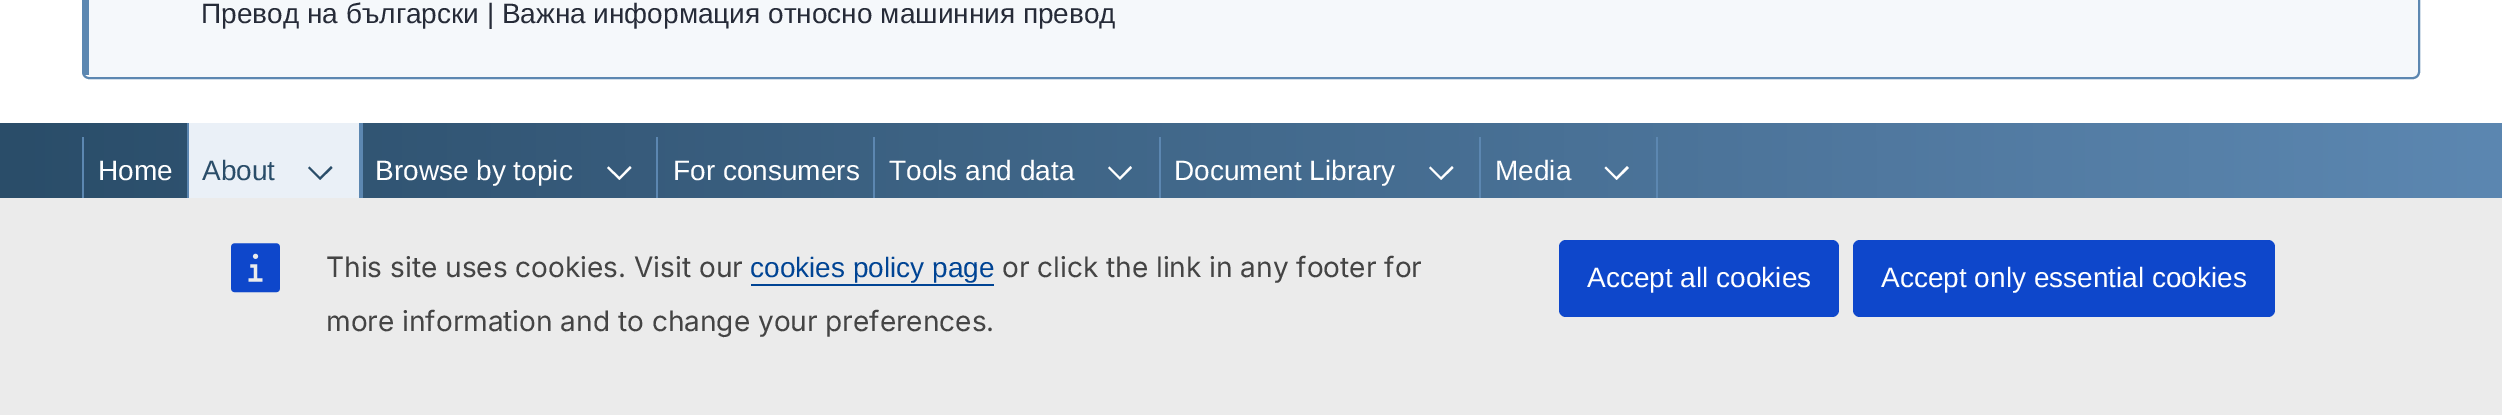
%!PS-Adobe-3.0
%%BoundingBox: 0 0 2502 415
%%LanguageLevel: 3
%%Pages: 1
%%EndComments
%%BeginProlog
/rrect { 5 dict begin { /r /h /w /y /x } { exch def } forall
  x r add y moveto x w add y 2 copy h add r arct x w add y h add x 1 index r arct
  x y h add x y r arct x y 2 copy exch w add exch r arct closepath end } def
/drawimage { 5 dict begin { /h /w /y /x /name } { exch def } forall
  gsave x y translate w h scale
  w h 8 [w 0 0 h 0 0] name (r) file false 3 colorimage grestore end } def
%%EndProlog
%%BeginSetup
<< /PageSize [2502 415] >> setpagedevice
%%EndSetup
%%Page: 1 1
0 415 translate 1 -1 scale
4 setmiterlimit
1 setgray
0 0 2502 415 rectfill
0.961 0.973 0.984 setrgbcolor
newpath 89 -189 moveto 2413 -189 lineto 2416 -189 2418 -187 2418 -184 curveto 2418 72 lineto 2418 75 2416 77 2413 77 curveto 89 77 lineto closepath fill
0.361 0.529 0.694 setrgbcolor
2 setlinewidth
83 -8 2336 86 6 rrect stroke
84 0 5 75 rectfill
gsave newpath 0 123 moveto 2502 123 lineto 2502 198 lineto 0 198 lineto closepath clip newpath
<< /ShadingType 2 /ColorSpace /DeviceRGB /Coords [0 172 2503 171] /Extend [true true] /Function << /FunctionType 2 /Domain [0 1] /C0 [0.165 0.302 0.412] /C1 [0.361 0.529 0.694] /N 1 >> >> shfill grestore
82 137 2 61 rectfill
0.918 0.941 0.969 setrgbcolor
189 123 170 75 rectfill
0.361 0.529 0.694 setrgbcolor
359 123 4 75 rectfill
187 123 2 75 rectfill
0.165 0.302 0.412 setrgbcolor
newpath 308 168 moveto 309.5 166.5 lineto 320 177 lineto 331 166 lineto 332.5 168 lineto 320 180 lineto closepath fill
1 setgray
newpath 607 168 moveto 608.5 166.5 lineto 619.5 177 lineto 630 166 lineto 631.5 168 lineto 619.5 180 lineto closepath fill
0.361 0.529 0.694 setrgbcolor
656 137 2 61 rectfill
873 137 2 61 rectfill
1 setgray
newpath 1108 168 moveto 1109.5 166.5 lineto 1120 177 lineto 1130.5 166 lineto 1132 168 lineto 1120 180 lineto closepath fill
0.361 0.529 0.694 setrgbcolor
1159 137 2 61 rectfill
1 setgray
newpath 1429 168 moveto 1430.5 166.5 lineto 1441 177 lineto 1452 166 lineto 1453.5 168 lineto 1441 180 lineto closepath fill
0.361 0.529 0.694 setrgbcolor
1479 137 2 61 rectfill
1 setgray
newpath 1604.5 168 moveto 1606 166.5 lineto 1616.5 177 lineto 1627 166 lineto 1629 168 lineto 1616.5 180 lineto closepath fill
0.361 0.529 0.694 setrgbcolor
1656 137 2 61 rectfill
0.922 setgray
0 198 2502 217 rectfill
(images/1.raw) 231 243 49 50 drawimage
0 0.267 0.58 setrgbcolor
751 284 243 2 rectfill
0.055 0.278 0.796 setrgbcolor
1559 240 280 77 7 rrect fill
1853 240 422 77 7 rrect fill
/LiberationSans-Regular [28 0 0 -28 0 0] selectfont
0.149 0.169 0.22 setrgbcolor
201 23 moveto (Превод на български | Важна информация относно машинния превод) show
1 setgray
98 180 moveto (Home) show
0.165 0.302 0.412 setrgbcolor
202 180 moveto (About) show
1 setgray
375 180 moveto (Browse by topic) show
673 180 moveto (For consumers) show
889 180 moveto (Tools and data) show
1174 180 moveto (Document Library) show
1495 180 moveto (Media) show
/Inter-Regular [28 0 0 -28 0 0] selectfont
0.267 setgray
326 277 moveto (This site uses cookies. Visit our) show
/LiberationSans-Regular [28 0 0 -28 0 0] selectfont
0 0.267 0.58 setrgbcolor
750 277 moveto (cookies policy page) show
/Inter-Regular [28 0 0 -28 0 0] selectfont
0.267 setgray
1002 277 moveto (or click the link in any footer for) show
326 331 moveto (more information and to change your preferences.) show
/LiberationSans-Regular [28 0 0 -28 0 0] selectfont
1 setgray
1587 287 moveto (Accept all cookies) show
1881 287 moveto (Accept only essential cookies) show
showpage
%%EOF
